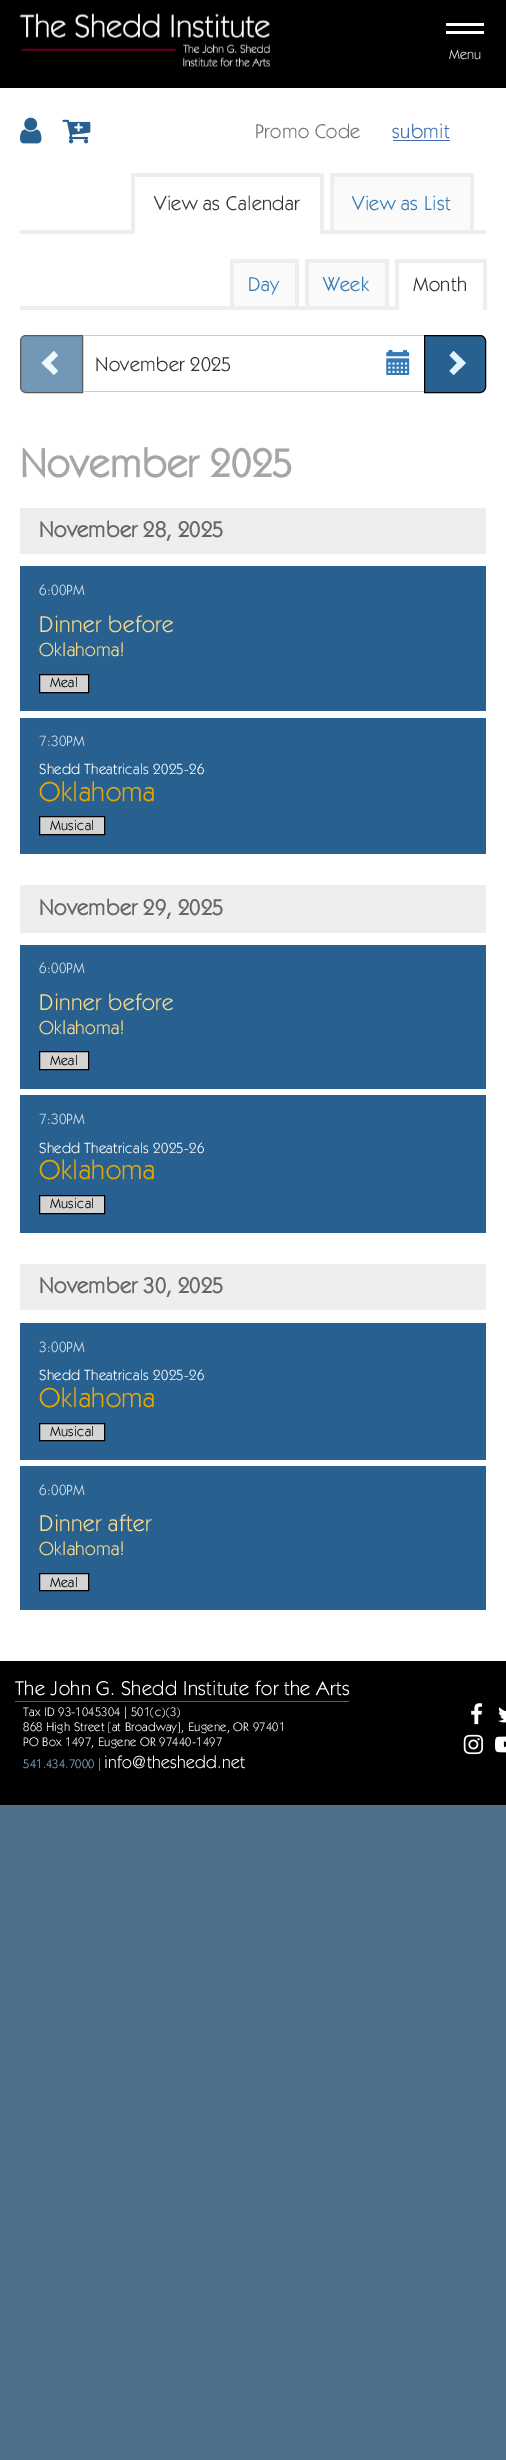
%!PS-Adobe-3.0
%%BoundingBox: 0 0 506 2460
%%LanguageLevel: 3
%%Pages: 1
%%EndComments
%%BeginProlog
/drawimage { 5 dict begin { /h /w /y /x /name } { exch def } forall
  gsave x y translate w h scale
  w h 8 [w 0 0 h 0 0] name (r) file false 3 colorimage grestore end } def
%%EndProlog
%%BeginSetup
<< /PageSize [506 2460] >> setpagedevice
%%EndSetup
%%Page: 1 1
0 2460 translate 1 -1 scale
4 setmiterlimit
0.31 0.439 0.545 setrgbcolor
0 0 506 2460 rectfill
0 setgray
0 0 506 88 rectfill
(images/1.raw) 20 13 250 54 drawimage
1 setgray
446 23 38 3 rectfill
446 31 38 3 rectfill
0 88 506 1573 rectfill
(images/2.raw) 20 117 22 27 drawimage
(images/3.raw) 62 119 29 25 drawimage
0.247 0.435 0.698 setrgbcolor
393 140 57 1 rectfill
0.933 setgray
20 230 466 4 rectfill
1 setgray
135 230 185 4 rectfill
0.933 setgray
131 173 193 4 rectfill
320 173 4 61 rectfill
131 173 4 61 rectfill
0.98 setgray
334 177 136 53 rectfill
0.933 setgray
330 173 144 4 rectfill
470 173 4 57 rectfill
330 173 4 57 rectfill
20 306 375 4 rectfill
0.98 setgray
234 263 61 43 rectfill
0.933 setgray
230 259 69 4 rectfill
295 259 4 47 rectfill
230 259 4 47 rectfill
0.98 setgray
309 263 76 43 rectfill
0.933 setgray
305 259 84 4 rectfill
385 259 4 47 rectfill
305 259 4 47 rectfill
395 259 91 4 rectfill
483 259 4 51 rectfill
395 259 4 51 rectfill
0.451 0.596 0.718 setrgbcolor
newpath 26 335.5 moveto 82.5 335.5 lineto 82.5 392.5 lineto 26 392.5 lineto 23 392.5 20.5 390 20.5 387 curveto 20.5 341 lineto 20.5 338 23 335.5 26 335.5 curveto closepath gsave fill grestore
0.349 setgray
stroke
0.925 0.976 0.996 setrgbcolor
newpath 58 355.5 moveto 50.5 363 lineto 58 371 lineto 54 375 lineto 41.5 363 lineto 54 351 lineto closepath fill
0.8 setgray
83 335 341 1 rectfill
83 391 341 1 rectfill
(images/4.raw) 386 350 24 25 drawimage
0.157 0.376 0.565 setrgbcolor
newpath 424.5 335.5 moveto 480 335.5 lineto 483 335.5 485.5 338 485.5 341 curveto 485.5 387 lineto 485.5 390 483 392.5 480 392.5 curveto 424.5 392.5 lineto closepath gsave fill grestore
0 setgray
stroke
0.882 0.961 0.996 setrgbcolor
newpath 466 363 moveto 453.5 375 lineto 449.5 371 lineto 457 363 lineto 449.5 355.5 lineto 453.5 351 lineto closepath fill
0.933 setgray
20 508 466 46 rectfill
0.157 0.376 0.565 setrgbcolor
20 566 466 145 rectfill
0.827 setgray
newpath 39.5 674.5 moveto 88.5 674.5 lineto 88.5 692.5 lineto 39.5 692.5 lineto closepath gsave fill grestore
0 setgray
stroke
0.157 0.376 0.565 setrgbcolor
20 718 466 136 rectfill
0.827 setgray
newpath 39.5 816.5 moveto 104.5 816.5 lineto 104.5 834.5 lineto 39.5 834.5 lineto closepath gsave fill grestore
0 setgray
stroke
0.933 setgray
20 885 466 48 rectfill
0.157 0.376 0.565 setrgbcolor
20 945 466 144 rectfill
0.827 setgray
newpath 39.5 1051.5 moveto 88.5 1051.5 lineto 88.5 1069.5 lineto 39.5 1069.5 lineto closepath gsave fill grestore
0 setgray
stroke
0.157 0.376 0.565 setrgbcolor
20 1095 466 138 rectfill
0.827 setgray
newpath 39.5 1195.5 moveto 104.5 1195.5 lineto 104.5 1213.5 lineto 39.5 1213.5 lineto closepath gsave fill grestore
0 setgray
stroke
0.933 setgray
20 1264 466 46 rectfill
0.157 0.376 0.565 setrgbcolor
20 1323 466 137 rectfill
0.827 setgray
newpath 39.5 1423.5 moveto 104.5 1423.5 lineto 104.5 1440.5 lineto 39.5 1440.5 lineto closepath gsave fill grestore
0 setgray
stroke
0.157 0.376 0.565 setrgbcolor
20 1466 466 144 rectfill
0.827 setgray
newpath 39.5 1573.5 moveto 88.5 1573.5 lineto 88.5 1590.5 lineto 39.5 1590.5 lineto closepath gsave fill grestore
0 setgray
stroke
0 1661 506 144 rectfill
0.851 0.149 0.165 setrgbcolor
15 1701 334 1 rectfill
(images/5.raw) 471 1703 12 22 drawimage
(images/6.raw) 498 1707 8 16 drawimage
(images/7.raw) 463 1734 21 21 drawimage
(images/8.raw) 495 1736 11 17 drawimage
/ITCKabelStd-Regular [14 0 0 -14 0 0] selectfont
0.902 setgray
449 59 moveto (Menu) show
/ITCKabelStd-Regular [20 0 0 -20 0 0] selectfont
0.459 setgray
255 138 moveto 0.4 0 (Promo Code) ashow
0.247 0.435 0.698 setrgbcolor
392 138 moveto 0.4 0 (submit) ashow
0.2 setgray
154 210 moveto 0.4 0 (View as Calendar) ashow
0.2 0.478 0.718 setrgbcolor
352 210 moveto 0.4 0 (View as List) ashow
248 291 moveto 0.4 0 (Day) ashow
323 291 moveto 0.4 0 (Week) ashow
0.2 setgray
413 291 moveto 0.4 0 (Month) ashow
95 371 moveto 0.4 0 (November 2025) ashow
/ITCKabelStd-Bold [40 0 0 -40 0 0] selectfont
0.651 setgray
20 477 moveto 0.75 0 (November 2025) ashow
/ITCKabelStd-Bold [22 0 0 -22 0 0] selectfont
0.4 setgray
39 537 moveto 0.4 0 (November 28, 2025) ashow
/ITCKabelStd-Regular [15 0 0 -15 0 0] selectfont
0.831 0.875 0.914 setrgbcolor
39 595 moveto 0.25 0 (6:00PM) ashow
/ITCKabelStd-Regular [23 0 0 -23 0 0] selectfont
0.98 0.859 0.541 setrgbcolor
39 632 moveto 0.5 0 (Dinner before) ashow
/ITCKabelStd-Regular [19 0 0 -19 0 0] selectfont
39 656 moveto 0.4 0 (Oklahoma!) ashow
/ITCKabelStd-Regular [14 0 0 -14 0 0] selectfont
0 setgray
50 687 moveto 0.25 0 (Meal) ashow
/ITCKabelStd-Regular [15 0 0 -15 0 0] selectfont
0.831 0.875 0.914 setrgbcolor
39 746 moveto 0.25 0 (7:30PM) ashow
/ITCKabelStd-Regular [14.75 0 0 -14.75 0 0] selectfont
1 setgray
39 774 moveto 0.25 0 (Shedd Theatricals 2025-26) ashow
/ITCKabelStd-Regular [27.5 0 0 -27.5 0 0] selectfont
0.91 0.659 0.004 setrgbcolor
39 801 moveto 0.5 0 (Oklahoma) ashow
/ITCKabelStd-Regular [14 0 0 -14 0 0] selectfont
0 setgray
50 830 moveto 0.25 0 (Musical) ashow
/ITCKabelStd-Bold [22 0 0 -22 0 0] selectfont
0.4 setgray
39 915 moveto 0.4 0 (November 29, 2025) ashow
/ITCKabelStd-Regular [15 0 0 -15 0 0] selectfont
0.831 0.875 0.914 setrgbcolor
39 973 moveto 0.25 0 (6:00PM) ashow
/ITCKabelStd-Regular [23 0 0 -23 0 0] selectfont
0.98 0.859 0.541 setrgbcolor
39 1010 moveto 0.5 0 (Dinner before) ashow
/ITCKabelStd-Regular [19 0 0 -19 0 0] selectfont
39 1034 moveto 0.4 0 (Oklahoma!) ashow
/ITCKabelStd-Regular [14 0 0 -14 0 0] selectfont
0 setgray
50 1065 moveto 0.25 0 (Meal) ashow
/ITCKabelStd-Regular [15 0 0 -15 0 0] selectfont
0.831 0.875 0.914 setrgbcolor
39 1124 moveto 0.25 0 (7:30PM) ashow
/ITCKabelStd-Regular [14.75 0 0 -14.75 0 0] selectfont
1 setgray
39 1153 moveto 0.25 0 (Shedd Theatricals 2025-26) ashow
/ITCKabelStd-Regular [27.5 0 0 -27.5 0 0] selectfont
0.91 0.659 0.004 setrgbcolor
39 1179 moveto 0.5 0 (Oklahoma) ashow
/ITCKabelStd-Regular [14 0 0 -14 0 0] selectfont
0 setgray
50 1208 moveto 0.25 0 (Musical) ashow
/ITCKabelStd-Bold [22 0 0 -22 0 0] selectfont
0.4 setgray
39 1293 moveto 0.4 0 (November 30, 2025) ashow
/ITCKabelStd-Regular [15 0 0 -15 0 0] selectfont
0.831 0.875 0.914 setrgbcolor
39 1352 moveto 0.25 0 (3:00PM) ashow
/ITCKabelStd-Regular [14.75 0 0 -14.75 0 0] selectfont
1 setgray
39 1380 moveto 0.25 0 (Shedd Theatricals 2025-26) ashow
/ITCKabelStd-Regular [27.5 0 0 -27.5 0 0] selectfont
0.91 0.659 0.004 setrgbcolor
39 1407 moveto 0.5 0 (Oklahoma) ashow
/ITCKabelStd-Regular [14 0 0 -14 0 0] selectfont
0 setgray
50 1436 moveto 0.25 0 (Musical) ashow
/ITCKabelStd-Regular [15 0 0 -15 0 0] selectfont
0.831 0.875 0.914 setrgbcolor
39 1495 moveto 0.25 0 (6:00PM) ashow
/ITCKabelStd-Regular [23 0 0 -23 0 0] selectfont
0.98 0.859 0.541 setrgbcolor
39 1531 moveto 0.5 0 (Dinner after) ashow
/ITCKabelStd-Regular [19 0 0 -19 0 0] selectfont
39 1555 moveto 0.4 0 (Oklahoma!) ashow
/ITCKabelStd-Regular [14 0 0 -14 0 0] selectfont
0 setgray
50 1587 moveto 0.25 0 (Meal) ashow
/ITCKabelStd-Regular [20 0 0 -20 0 0] selectfont
1 setgray
15 1695 moveto 0.4 0 (The John G. Shedd Institute for the Arts) ashow
/ITCKabelStd-Regular [12.5 0 0 -12.5 0 0] selectfont
23 1716 moveto 0.25 0 (Tax ID 93-1045304 | 501\(c\)\(3\)) ashow
23 1731 moveto 0.25 0 (868 High Street [at Broadway], Eugene, OR 97401) ashow
23 1746 moveto 0.25 0 (PO Box 1497, Eugene OR 97440-1497) ashow
0.557 0.706 0.827 setrgbcolor
23 1768 moveto 0.25 0 (541.434.7000 |) ashow
/ITCKabelStd-Regular [17.5 0 0 -17.5 0 0] selectfont
1 setgray
104 1768 moveto 0.3 0 (info@theshedd.net) ashow
showpage
%%EOF
